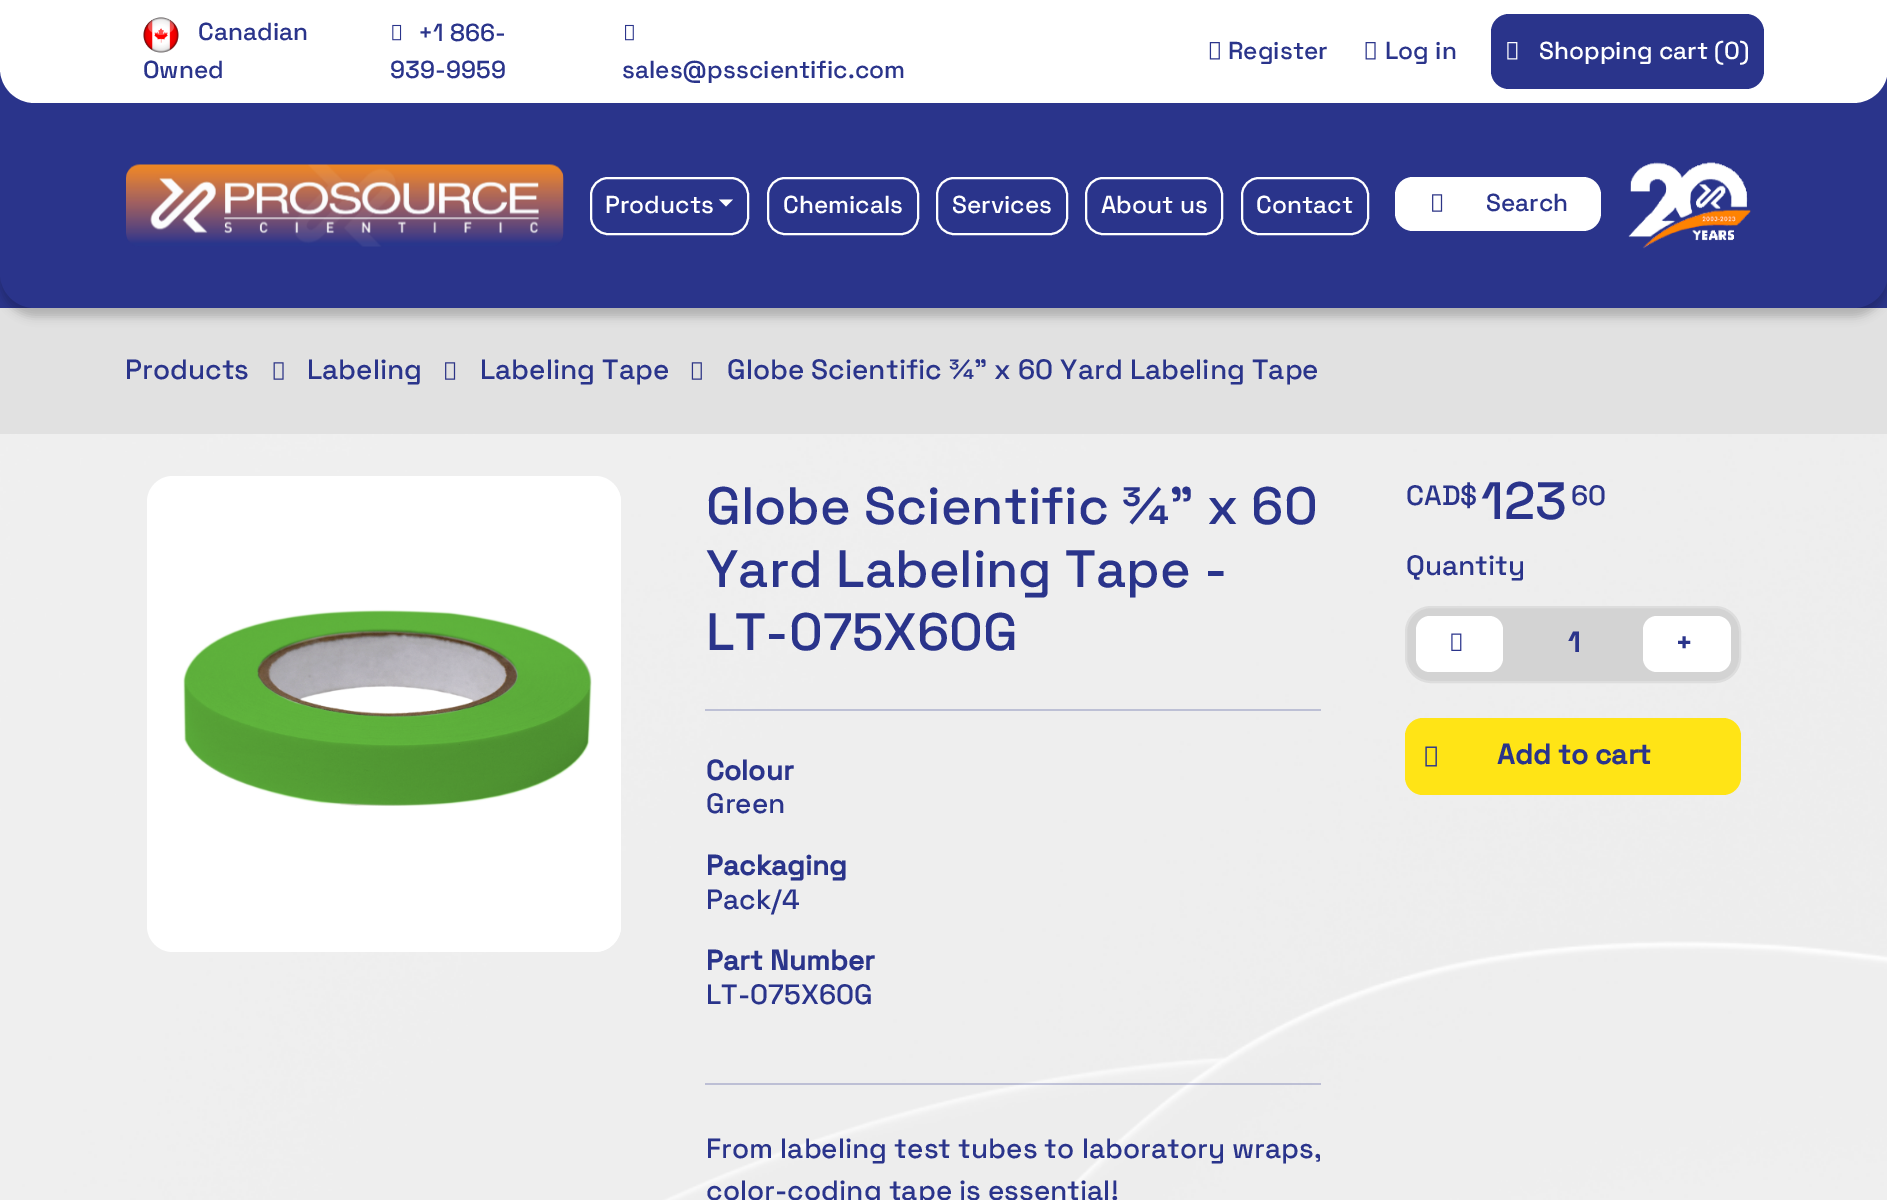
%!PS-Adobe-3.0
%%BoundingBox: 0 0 1887 1200
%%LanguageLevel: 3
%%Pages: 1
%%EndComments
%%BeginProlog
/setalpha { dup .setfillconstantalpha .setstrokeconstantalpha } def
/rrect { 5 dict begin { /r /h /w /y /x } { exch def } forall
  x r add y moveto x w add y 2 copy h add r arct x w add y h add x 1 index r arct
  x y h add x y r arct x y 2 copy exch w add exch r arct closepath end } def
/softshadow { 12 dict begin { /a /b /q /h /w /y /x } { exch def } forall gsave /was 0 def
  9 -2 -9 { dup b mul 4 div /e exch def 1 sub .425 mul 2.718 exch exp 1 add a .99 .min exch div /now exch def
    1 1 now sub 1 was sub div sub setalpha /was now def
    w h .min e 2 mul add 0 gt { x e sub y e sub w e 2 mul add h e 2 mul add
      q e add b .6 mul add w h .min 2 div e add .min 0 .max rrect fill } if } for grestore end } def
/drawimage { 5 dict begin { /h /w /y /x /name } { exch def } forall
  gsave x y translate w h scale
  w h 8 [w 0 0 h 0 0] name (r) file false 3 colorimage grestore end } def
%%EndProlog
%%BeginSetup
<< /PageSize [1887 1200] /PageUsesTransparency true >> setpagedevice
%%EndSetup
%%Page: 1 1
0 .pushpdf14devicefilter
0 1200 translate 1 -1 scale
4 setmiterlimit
0.165 0.204 0.545 setrgbcolor
0 0 1887 1200 rectfill
1 setgray
newpath 0 0 moveto 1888 0 lineto 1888 68 lineto 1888 87.5 1872.5 103 1853 103 curveto 35 103 lineto 15.5 103 0 87.5 0 68 curveto closepath fill
(images/1.raw) 143 17 36 36 drawimage
(images/2.raw) 392 24 10 17 drawimage
(images/3.raw) 625 24 9 17 drawimage
(images/4.raw) 1209 42 11 18 drawimage
(images/5.raw) 1365 42 11 18 drawimage
0.165 0.204 0.545 setrgbcolor
1491 14 273 75 18 rrect fill
(images/6.raw) 1507 42 11 18 drawimage
0.882 setgray
0 308 1887 126 rectfill
0 setgray
0 112 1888 205 35 4.5 0.2 softshadow
0.165 0.204 0.545 setrgbcolor
newpath 0 103 moveto 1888 103 lineto 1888 273 lineto 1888 292.5 1872.5 308 1853 308 curveto 35 308 lineto 15.5 308 0 292.5 0 273 curveto closepath fill
(images/7.raw) 126 164 438 83 drawimage
1 setgray
2 setlinewidth
591 178 157 56 17 rrect stroke
newpath 719 199.5 moveto 733 199.5 lineto 726 206.5 lineto closepath fill
768 178 150 56 17 rrect stroke
937 178 130 56 17 rrect stroke
1086 178 136 56 17 rrect stroke
1242 178 126 56 17 rrect stroke
1395 177 206 54 18 rrect fill
(images/8.raw) 1432 194 11 18 drawimage
(images/9.raw) 1628 162 123 87 drawimage
(images/10.raw) 273 362 11 18 drawimage
(images/11.raw) 445 362 11 18 drawimage
(images/12.raw) 691 362 11 18 drawimage
(images/13.raw) 0 434 1887 766 drawimage
147 476 474 476 26 rrect fill
(images/14.raw) 183 487 438 465 drawimage
0.741 0.753 0.835 setrgbcolor
705 709 616 2 rectfill
0.25 setalpha
0.165 0.204 0.545 setrgbcolor
705 1083 616 2 rectfill
1 setalpha
0.827 setgray
1406 607 334 75 25 rrect gsave fill grestore
0.867 setgray
stroke
1 setgray
1416 616 87 56 14 rrect fill
(images/15.raw) 1451 633 11 18 drawimage
1643 616 88 56 14 rrect fill
1 0.894 0.086 setrgbcolor
1405 718 336 77 18 rrect fill
(images/16.raw) 1425 746 12 21 drawimage
/SpaceGrotesk-Light [24.5 0 0 -24.5 0 0] selectfont
0.165 0.204 0.545 setrgbcolor
198 40 moveto (Canadian) show
143 78 moveto (Owned) show
418 41 moveto (+1 866-) show
390 78 moveto (939-9959) show
622 78 moveto (sales@psscientific.com) show
1228 59 moveto (Register) show
1385 59 moveto (Log in) show
1 setgray
1539 59 moveto (Shopping cart \(0\)) show
605 213 moveto (Products) show
783 213 moveto (Chemicals) show
952 213 moveto (Services) show
1101 213 moveto (About us) show
1256 213 moveto (Contact) show
0.165 0.204 0.545 setrgbcolor
1486 211 moveto (Search) show
/SpaceGrotesk-Light [28 0 0 -28 0 0] selectfont
125 379 moveto (Products) show
307 379 moveto (Labeling) show
480 379 moveto (Labeling Tape) show
727 379 moveto (Globe Scientific ¾" x 60 Yard Labeling Tape) show
/SpaceGrotesk-Light [52.5 0 0 -52.5 0 0] selectfont
706 524 moveto (Globe Scientific ¾" x 60) show
706 587 moveto (Yard Labeling Tape -) show
706 650 moveto (LT-075X60G) show
/SpaceGrotesk-Bold [28 0 0 -28 0 0] selectfont
706 780 moveto (Colour) show
/SpaceGrotesk-Light [28 0 0 -28 0 0] selectfont
706 813 moveto (Green) show
/SpaceGrotesk-Bold [28 0 0 -28 0 0] selectfont
706 875 moveto (Packaging) show
/SpaceGrotesk-Light [28 0 0 -28 0 0] selectfont
706 909 moveto (Pack/4) show
/SpaceGrotesk-Bold [28 0 0 -28 0 0] selectfont
706 970 moveto (Part Number) show
/SpaceGrotesk-Light [28 0 0 -28 0 0] selectfont
706 1004 moveto (LT-075X60G) show
706 1158 moveto (From labeling test tubes to laboratory wraps,) show
706 1200 moveto (color-coding tape is essential!) show
1406 505 moveto (CAD$) show
/SpaceGrotesk-Light [52.5 0 0 -52.5 0 0] selectfont
1481 519 moveto (123) show
/SpaceGrotesk-Light [28 0 0 -28 0 0] selectfont
1571 505 moveto (60) show
1406 575 moveto (Quantity) show
/SpaceGrotesk-Bold [28 0 0 -28 0 0] selectfont
1568 652 moveto (1) show
/NotoSans-Black [24.5 0 0 -24.5 0 0] selectfont
1677 651 moveto (+) show
/SpaceGrotesk-Bold [28 0 0 -28 0 0] selectfont
1497 764 moveto (Add to cart) show
.poppdf14devicefilter showpage
%%EOF
